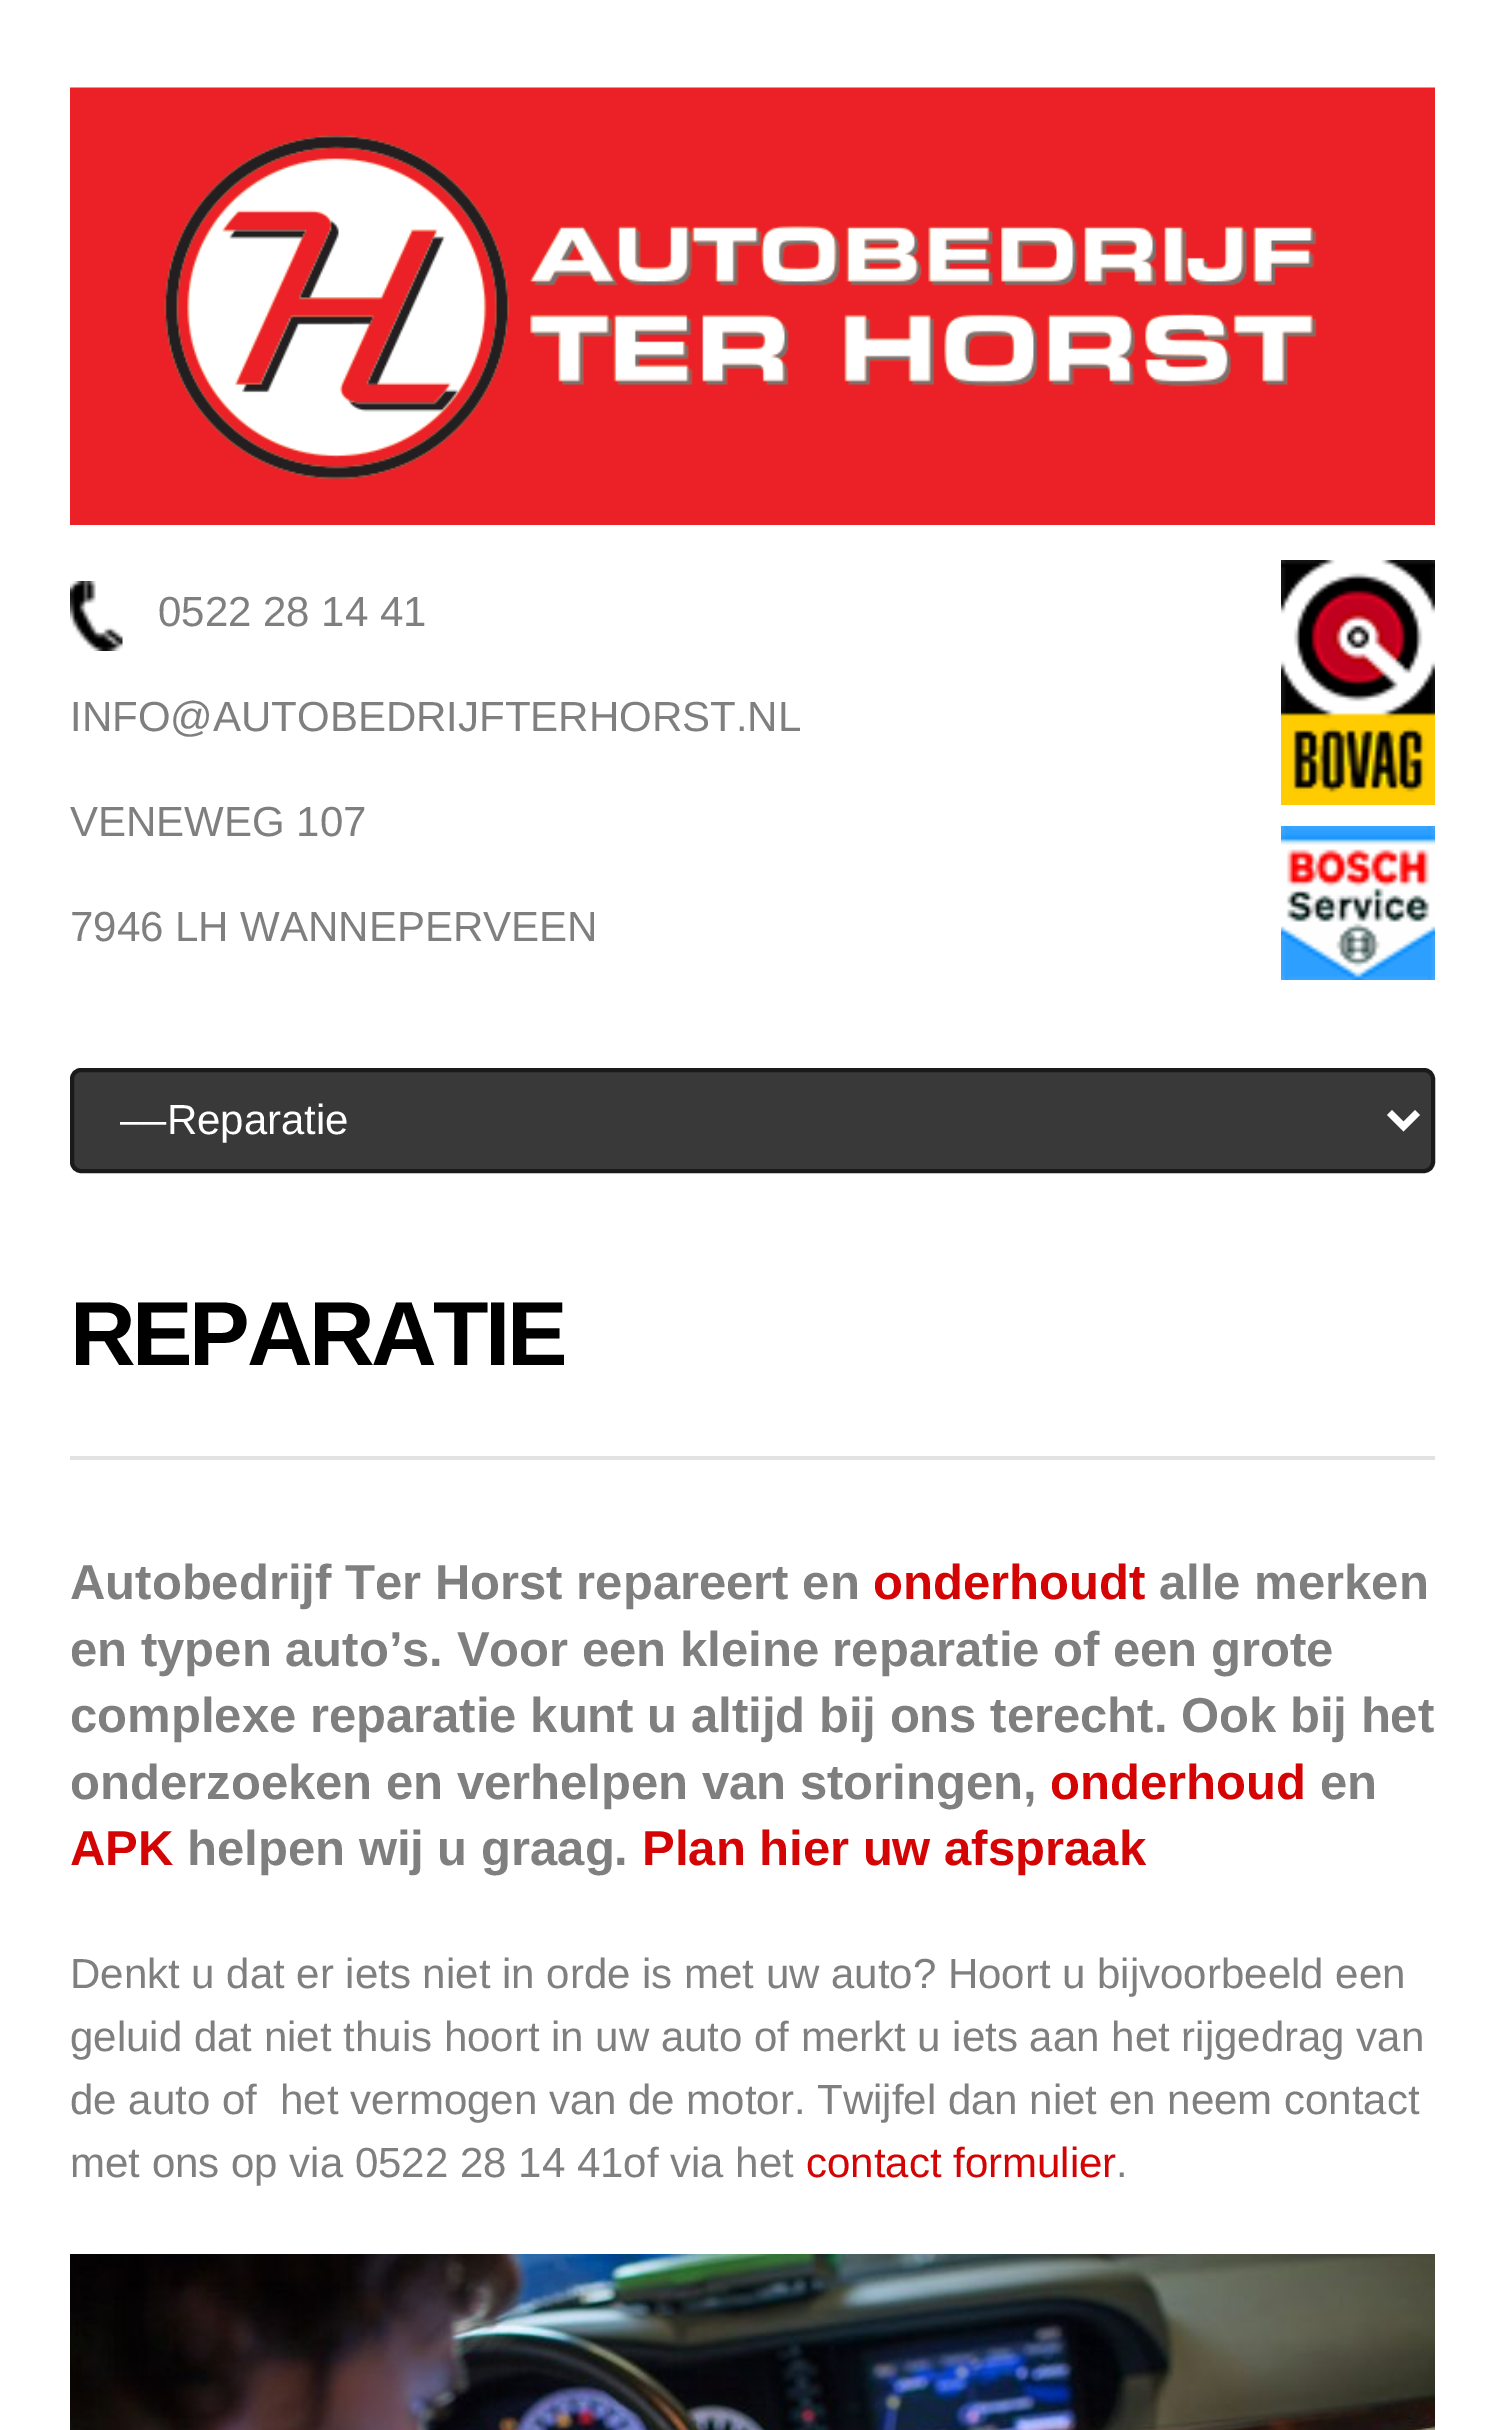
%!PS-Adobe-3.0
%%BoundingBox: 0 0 1504 2430
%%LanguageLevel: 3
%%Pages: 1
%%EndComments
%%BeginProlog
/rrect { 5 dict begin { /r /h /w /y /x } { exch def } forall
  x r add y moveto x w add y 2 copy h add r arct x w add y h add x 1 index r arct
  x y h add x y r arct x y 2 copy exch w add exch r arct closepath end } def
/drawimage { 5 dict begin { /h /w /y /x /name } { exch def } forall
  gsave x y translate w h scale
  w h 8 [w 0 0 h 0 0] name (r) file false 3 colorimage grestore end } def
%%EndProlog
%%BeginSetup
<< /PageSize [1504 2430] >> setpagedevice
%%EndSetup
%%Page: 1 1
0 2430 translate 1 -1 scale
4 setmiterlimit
1 setgray
0 0 1504 2430 rectfill
(images/1.raw) 70 87 1365 438 drawimage
(images/2.raw) 70 581 53 70 drawimage
(images/3.raw) 1281 560 154 245 drawimage
(images/4.raw) 1281 826 154 154 drawimage
0.224 setgray
72 1070 1361 101 9 rrect gsave fill grestore
0.102 setgray
4 setlinewidth
stroke
1 setgray
7 setlinewidth
newpath 1389.5 1112.5 moveto 1403.5 1126.5 lineto 1417.5 1112.5 lineto stroke
0.894 0.882 0.882 setrgbcolor
70 1456 1365 4 rectfill
(images/5.raw) 70 2254 1365 176 drawimage
/LiberationSans-Regular [42 0 0 -42 0 0] selectfont
0.498 setgray
158 626 moveto (0522 28 14 41) show
70 731 moveto (INFO@AUTOBEDRIJFTERHORST.NL) show
70 836 moveto (VENEWEG 107) show
70 941 moveto (7946 LH WANNEPERVEEN) show
1 setgray
120 1134 moveto (––Reparatie) show
/LiberationSans-Bold [91 0 0 -91 0 0] selectfont
0 setgray
70 1365 moveto -3.5 0 (REPARATIE) ashow
/LiberationSans-Bold [49 0 0 -49 0 0] selectfont
0.498 setgray
70 1599 moveto (Autobedrijf Ter Horst repareert en) show
0.835 0.016 0.016 setrgbcolor
873 1599 moveto (onderhoudt) show
0.498 setgray
1159 1599 moveto (alle merken) show
70 1666 moveto (en typen auto’s. Voor een kleine reparatie of een grote) show
70 1732 moveto (complexe reparatie kunt u altijd bij ons terecht. Ook bij het) show
70 1799 moveto (onderzoeken en verhelpen van storingen,) show
0.835 0.016 0.016 setrgbcolor
1050 1799 moveto (onderhoud) show
0.498 setgray
1320 1799 moveto (en) show
0.835 0.016 0.016 setrgbcolor
70 1865 moveto (APK) show
0.498 setgray
187 1865 moveto (helpen wij u graag.) show
0.835 0.016 0.016 setrgbcolor
642 1865 moveto (Plan hier uw afspraak) show
/LiberationSans-Regular [42 0 0 -42 0 0] selectfont
0.498 setgray
70 1988 moveto (Denkt u dat er iets niet in orde is met uw auto? Hoort u bijvoorbeeld een) show
70 2051 moveto (geluid dat niet thuis hoort in uw auto of merkt u iets aan het rijgedrag van) show
70 2114 moveto (de auto of  het vermogen van de motor. Twijfel dan niet en neem contact) show
70 2177 moveto (met ons op via 0522 28 14 41of via het) show
0.835 0.016 0.016 setrgbcolor
806 2177 moveto (contact formulier) show
0.498 setgray
1116 2177 moveto (.) show
showpage
%%EOF
